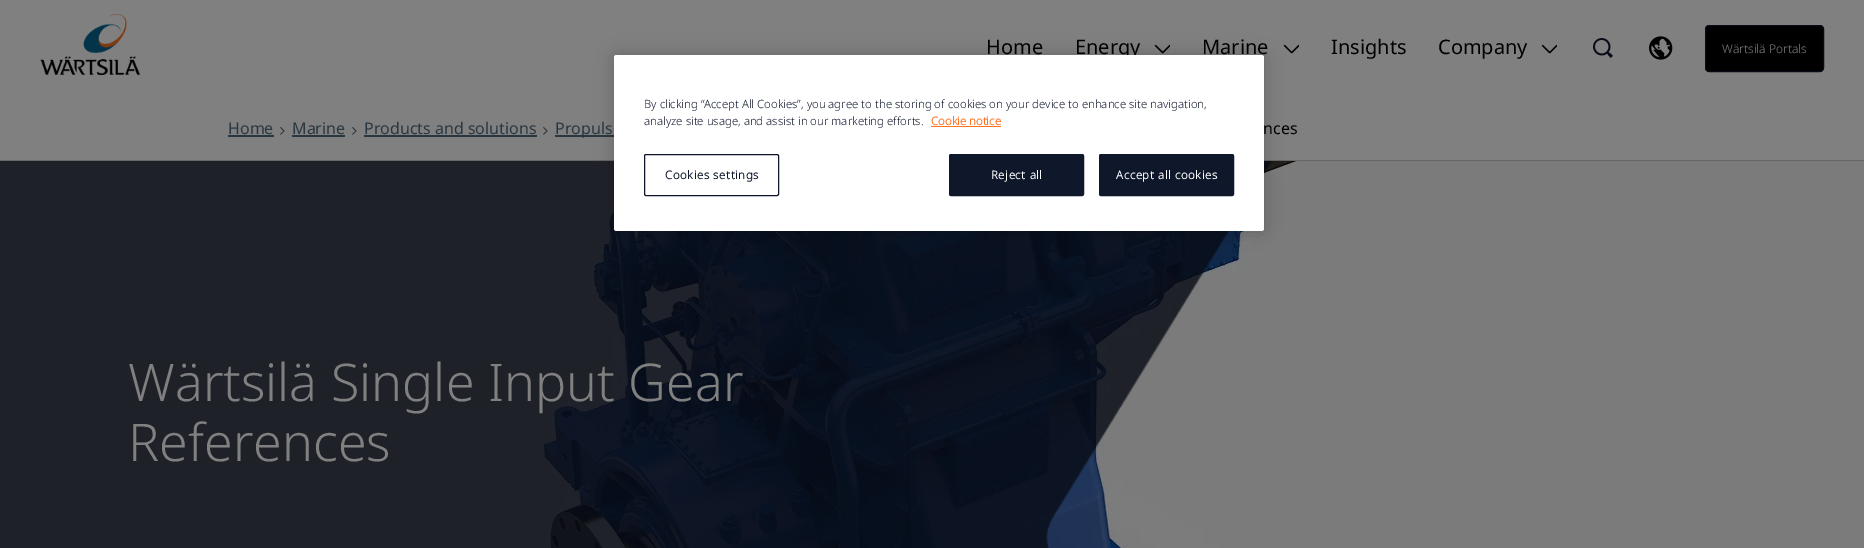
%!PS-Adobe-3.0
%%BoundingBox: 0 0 1864 548
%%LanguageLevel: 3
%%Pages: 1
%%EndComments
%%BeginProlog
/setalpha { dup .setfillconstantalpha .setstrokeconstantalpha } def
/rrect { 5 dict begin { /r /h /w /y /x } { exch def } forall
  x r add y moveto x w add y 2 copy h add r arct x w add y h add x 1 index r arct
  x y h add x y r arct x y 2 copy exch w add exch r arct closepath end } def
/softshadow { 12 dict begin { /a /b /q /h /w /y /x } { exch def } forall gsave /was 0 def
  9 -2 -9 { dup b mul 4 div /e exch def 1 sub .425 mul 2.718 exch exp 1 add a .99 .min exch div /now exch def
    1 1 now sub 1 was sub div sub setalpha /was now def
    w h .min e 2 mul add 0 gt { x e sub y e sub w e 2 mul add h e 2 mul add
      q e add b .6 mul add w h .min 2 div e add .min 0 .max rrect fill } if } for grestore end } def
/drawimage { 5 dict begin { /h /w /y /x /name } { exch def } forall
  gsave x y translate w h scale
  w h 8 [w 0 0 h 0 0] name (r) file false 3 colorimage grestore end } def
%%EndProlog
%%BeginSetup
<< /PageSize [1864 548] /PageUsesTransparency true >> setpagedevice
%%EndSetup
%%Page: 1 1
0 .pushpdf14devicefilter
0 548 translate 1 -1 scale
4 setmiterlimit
0.502 setgray
0 0 1864 548 rectfill
(images/1.raw) 40 14 100 61 drawimage
(images/2.raw) 1154 44 16 10 drawimage
(images/2.raw) 1283 44 16 10 drawimage
(images/2.raw) 1541 44 16 10 drawimage
(images/3.raw) 1593 38 20 20 drawimage
(images/4.raw) 1649 36 24 24 drawimage
0 setgray
1705.5 25.5 118 46 3.5 rrect gsave fill grestore
0.031 0.047 0.086 setrgbcolor
stroke
0.4 setgray
0 160 1864 1 rectfill
0.161 0.216 0.255 setrgbcolor
555 135 59 2 rectfill
(images/6.raw) 0 161 1864 387 drawimage
(images/7.raw) 0 161 1272 387 drawimage
0 setgray
614 55 650 176 2.5 9 0.2 softshadow
0.161 0.216 0.255 setrgbcolor
228 135 46 2 rectfill
(images/5.raw) 280 127 5 8 drawimage
292 135 53 2 rectfill
(images/5.raw) 352 127 5 8 drawimage
364 135 173 2 rectfill
(images/5.raw) 543 127 5 8 drawimage
/NotoSans-Regular [20 0 0 -20 0 0] selectfont
0 setgray
986 54 moveto (Home) show
1075 54 moveto (Energy) show
1202 54 moveto (Marine) show
1331 54 moveto (Insights) show
1438 54 moveto (Company) show
/NotoSans-Light [12 0 0 -12 0 0] selectfont
0.502 setgray
1722 53 moveto (Wärtsilä Portals) show
/NotoSans-Regular [16 0 0 -16 0 0] selectfont
0.161 0.216 0.255 setrgbcolor
228 134 moveto (Home) show
292 134 moveto (Marine) show
364 134 moveto (Products and solutions) show
555 134 moveto (Propuls) show
0 setgray
1263 134 moveto (nces) show
1 setgray
614 55 650 176 2.5 rrect fill
0.059 0.09 0.169 setrgbcolor
1099.5 154.5 134 41 1.5 rrect gsave fill grestore
stroke
/NotoSans-Bold [11.4 0 0 -11.4 0 0] selectfont
1 setgray
1116 179 moveto 0.6 0 (Accept all cookies) ashow
0.059 0.09 0.169 setrgbcolor
949.5 154.5 134 41 1.5 rrect gsave fill grestore
stroke
1 setgray
991 179 moveto 0.6 0 (Reject all) ashow
0.059 0.09 0.169 setrgbcolor
644.5 154.5 134 41 1.5 rrect stroke
665 179 moveto 0.6 0 (Cookies settings) ashow
1 0.451 0.129 setrgbcolor
931 125 moveto (Cookie notice) show
931 126 70 1 rectfill
/NotoSans-Light [11.4 0 0 -11.4 0 0] selectfont
0.059 0.09 0.169 setrgbcolor
644 125 moveto (analyze site usage, and assist in our marketing efforts.) show
644 108 moveto (By clicking “Accept All Cookies”, you agree to the storing of cookies on your device to enhance site navigation,) show
/NotoSans-Light [52 0 0 -52 0 0] selectfont
0.502 setgray
128 401 moveto (Wärtsilä Single Input Gear) show
128 461 moveto (References) show
.poppdf14devicefilter showpage
%%EOF
